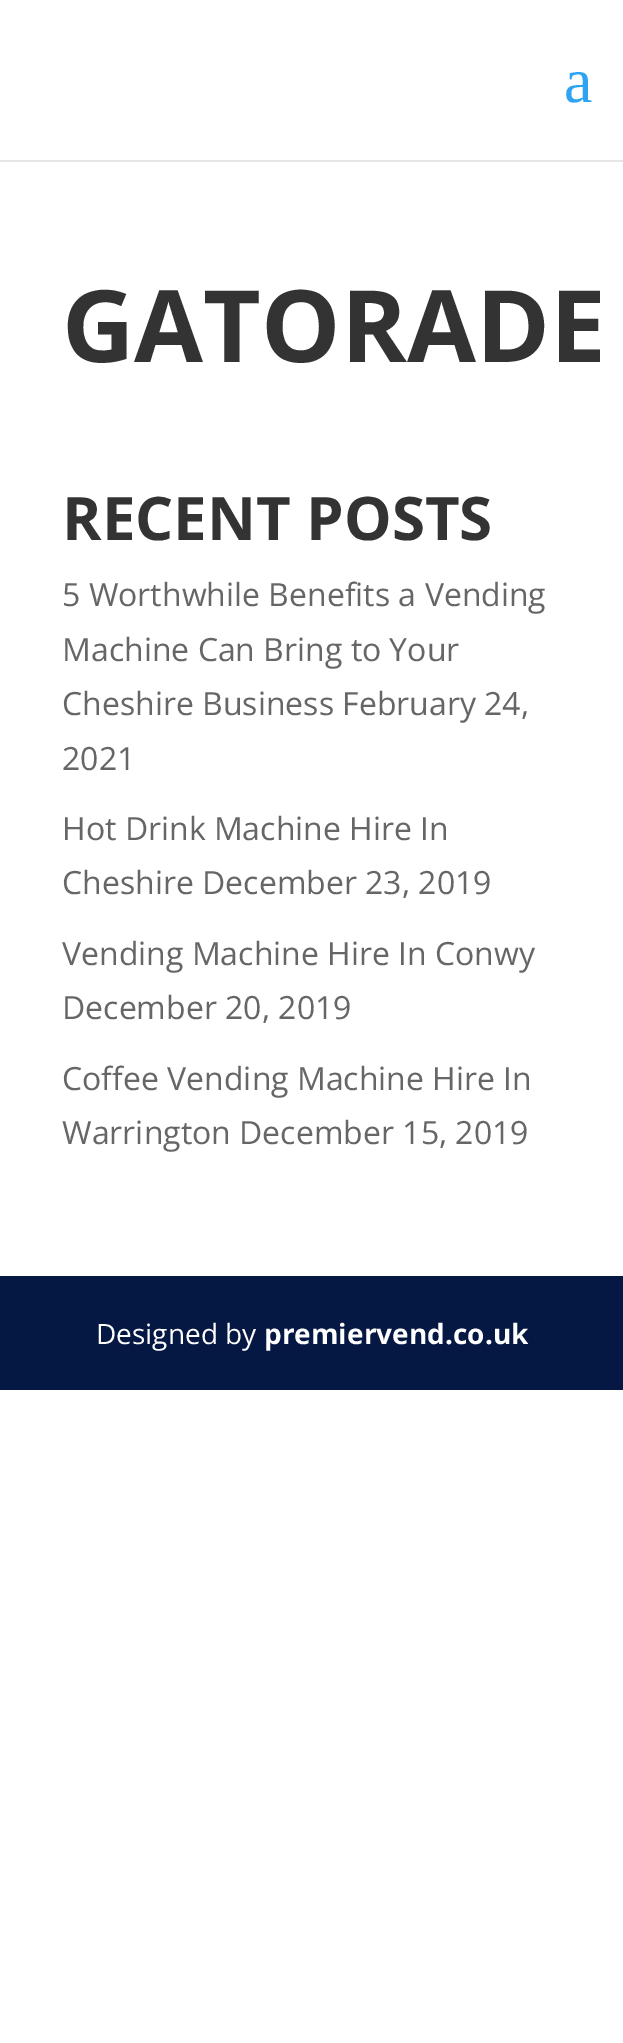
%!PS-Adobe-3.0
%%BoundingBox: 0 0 623 2043
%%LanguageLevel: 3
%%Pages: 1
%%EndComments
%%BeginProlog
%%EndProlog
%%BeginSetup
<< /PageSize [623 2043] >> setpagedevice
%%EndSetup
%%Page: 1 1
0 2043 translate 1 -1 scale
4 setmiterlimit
1 setgray
0 0 623 2043 rectfill
0.902 setgray
0 160 623 2 rectfill
0.02 0.09 0.263 setrgbcolor
0 1276 623 114 rectfill
/LiberationSerif-Regular [64 0 0 -64 0 0] selectfont
0.18 0.639 0.949 setrgbcolor
564 102 moveto (a) show
/OpenSans-Bold [100 0 0 -100 0 0] selectfont
0.2 setgray
62 362 moveto (GATORADE) show
/OpenSans-Bold [60 0 0 -60 0 0] selectfont
62 540 moveto (RECENT POSTS) show
/OpenSans-Regular [32 0 0 -32 0 0] selectfont
0.4 setgray
62 606 moveto (5 Worthwhile Benefits a Vending) show
62 661 moveto (Machine Can Bring to Your) show
62 715 moveto (Cheshire Business February 24,) show
62 770 moveto (2021) show
62 840 moveto (Hot Drink Machine Hire In) show
62 894 moveto (Cheshire December 23, 2019) show
62 965 moveto (Vending Machine Hire In Conwy) show
62 1019 moveto (December 20, 2019) show
62 1090 moveto (Coffee Vending Machine Hire In) show
62 1144 moveto (Warrington December 15, 2019) show
/OpenSans-Regular [28 0 0 -28 0 0] selectfont
1 setgray
96 1344 moveto (Designed by) show
/OpenSans-Bold [28 0 0 -28 0 0] selectfont
264 1344 moveto (premiervend.co.uk) show
showpage
%%EOF
